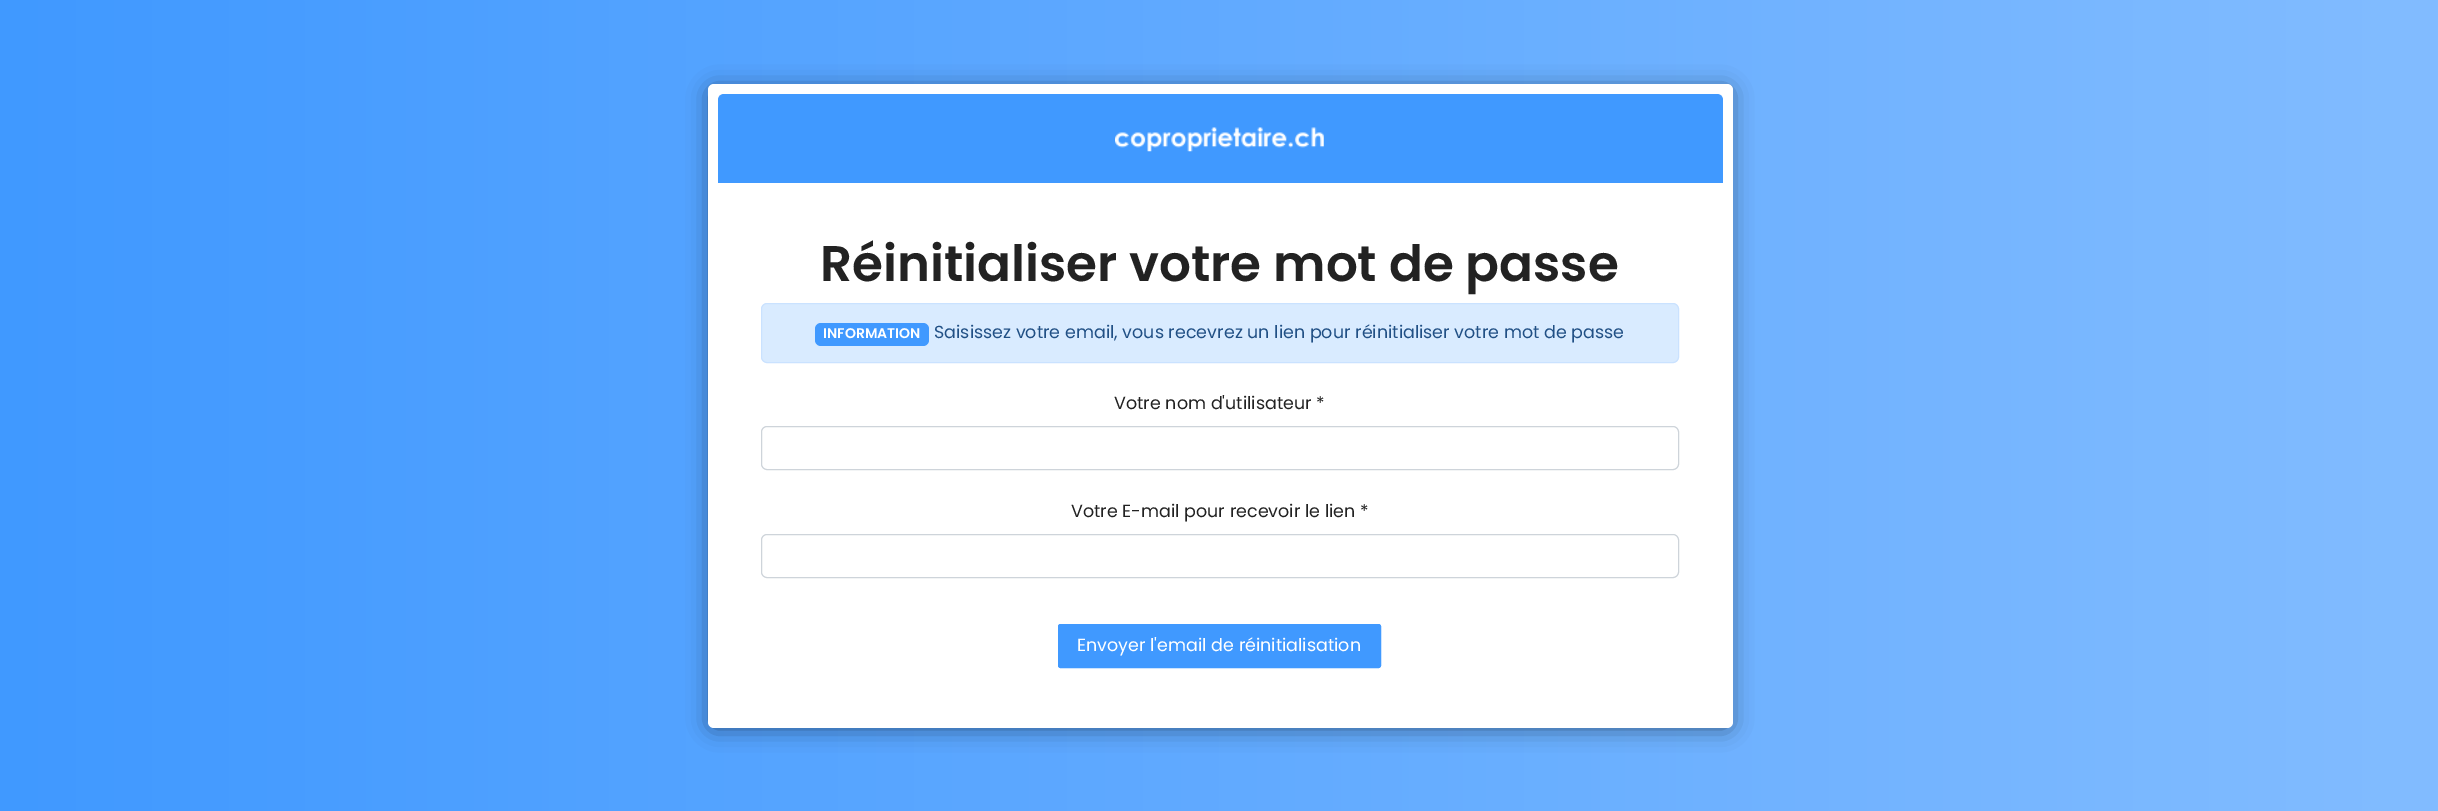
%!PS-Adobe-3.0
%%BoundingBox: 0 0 2438 811
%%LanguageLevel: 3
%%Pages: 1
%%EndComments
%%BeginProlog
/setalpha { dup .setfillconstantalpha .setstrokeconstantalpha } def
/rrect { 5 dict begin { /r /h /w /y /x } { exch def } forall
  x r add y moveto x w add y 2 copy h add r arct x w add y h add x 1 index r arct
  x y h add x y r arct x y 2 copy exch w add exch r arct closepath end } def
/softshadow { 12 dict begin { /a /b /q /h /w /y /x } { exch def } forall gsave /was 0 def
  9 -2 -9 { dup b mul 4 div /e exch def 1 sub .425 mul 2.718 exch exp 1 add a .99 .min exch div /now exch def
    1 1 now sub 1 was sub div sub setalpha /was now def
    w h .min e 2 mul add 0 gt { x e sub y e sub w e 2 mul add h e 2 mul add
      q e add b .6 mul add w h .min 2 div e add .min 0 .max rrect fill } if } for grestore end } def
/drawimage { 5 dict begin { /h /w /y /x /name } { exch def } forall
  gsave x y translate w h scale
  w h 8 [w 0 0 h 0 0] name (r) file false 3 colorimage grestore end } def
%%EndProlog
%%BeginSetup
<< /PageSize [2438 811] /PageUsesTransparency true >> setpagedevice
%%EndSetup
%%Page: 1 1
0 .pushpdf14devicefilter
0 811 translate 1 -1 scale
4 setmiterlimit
1 setgray
0 0 2438 811 rectfill
gsave newpath 0 0 moveto 2438 0 lineto 2438 811 lineto 0 811 lineto closepath clip newpath
<< /ShadingType 2 /ColorSpace /DeviceRGB /Coords [0 406 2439 406] /Extend [true true] /Function << /FunctionType 2 /Domain [0 1] /C0 [0.251 0.6 1] /C1 [0.51 0.737 1] /N 1 >> >> shfill grestore
0 setgray
710 89 1020 639 4 11 0.5 softshadow
1 setgray
708 84 1025 644 6 rrect fill
0.251 0.6 1 setrgbcolor
newpath 724 94 moveto 1717 94 lineto 1720.5 94 1723 96.5 1723 100 curveto 1723 183 lineto 718 183 lineto 718 100 lineto 718 96.5 720.5 94 724 94 curveto closepath fill
(images/1.raw) 1115 127 209 25 drawimage
0.851 0.922 1 setrgbcolor
761.5 303.5 917 59 5.5 rrect gsave fill grestore
0.792 0.886 1 setrgbcolor
stroke
0.251 0.6 1 setrgbcolor
815 323 114 23 6 rrect fill
0.808 0.831 0.855 setrgbcolor
761.5 426.5 917 43 5.5 rrect stroke
761.5 534.5 917 43 5.5 rrect stroke
0.251 0.6 1 setrgbcolor
1058.5 624.5 322 43 2 rrect gsave fill grestore
stroke
/Poppins-SemiBold [50 0 0 -50 0 0] selectfont
0.133 setgray
820 281 moveto (Réinitialiser votre mot de passe) show
/Poppins-SemiBold [14 0 0 -14 0 0] selectfont
1 setgray
823 338 moveto (INFORMATION) show
/Poppins-Regular [17.5 0 0 -17.5 0 0] selectfont
0.129 0.314 0.522 setrgbcolor
934 338 moveto (Saisissez votre email, vous recevrez un lien pour réinitialiser votre mot de passe) show
0.133 setgray
1114 409 moveto (Votre nom d'utilisateur *) show
1071 517 moveto (Votre E-mail pour recevoir le lien *) show
1 setgray
1077 651 moveto (Envoyer l'email de réinitialisation) show
.poppdf14devicefilter showpage
%%EOF
